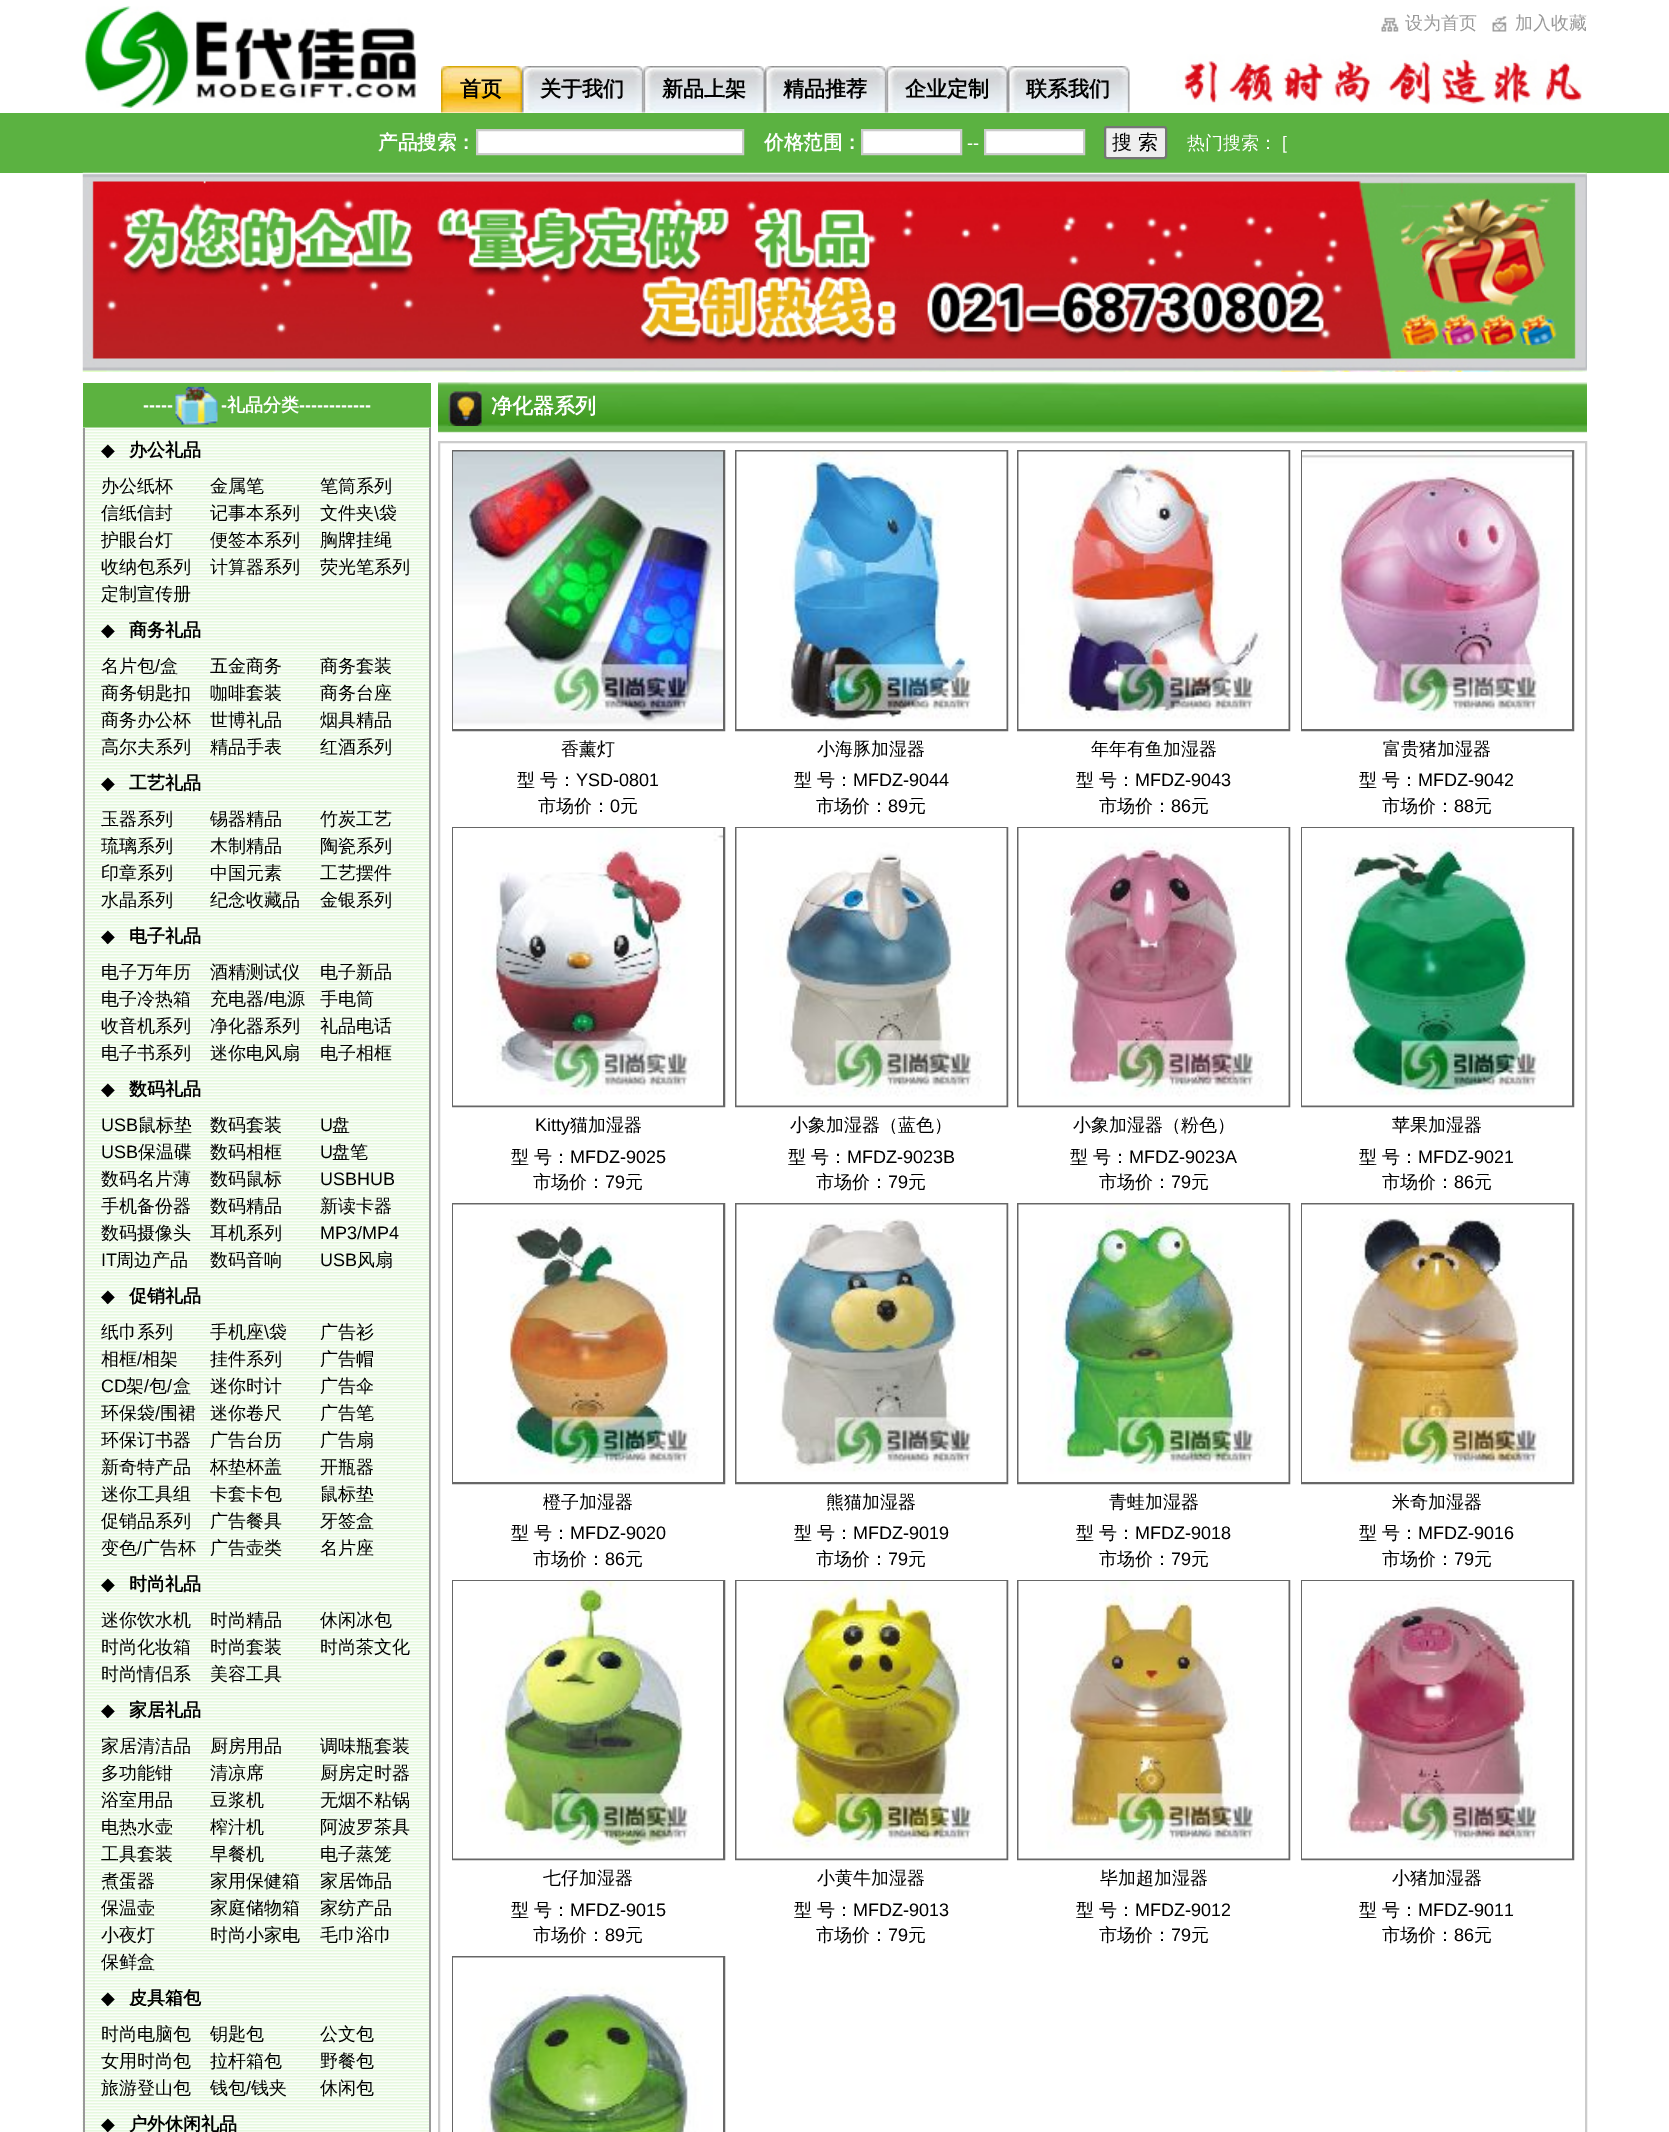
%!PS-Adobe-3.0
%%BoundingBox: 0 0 1669 2132
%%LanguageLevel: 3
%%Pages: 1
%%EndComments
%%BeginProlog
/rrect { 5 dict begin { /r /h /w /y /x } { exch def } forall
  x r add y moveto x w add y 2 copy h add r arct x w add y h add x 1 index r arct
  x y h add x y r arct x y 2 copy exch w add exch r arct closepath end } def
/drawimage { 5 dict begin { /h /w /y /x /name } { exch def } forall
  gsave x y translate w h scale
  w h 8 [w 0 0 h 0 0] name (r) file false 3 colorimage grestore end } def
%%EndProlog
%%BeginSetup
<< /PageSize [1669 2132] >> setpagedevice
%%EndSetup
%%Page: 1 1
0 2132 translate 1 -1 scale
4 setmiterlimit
1 setgray
0 0 1669 2132 rectfill
(images/1.raw) 85 6 332 102 drawimage
(images/2.raw) 1381 17 18 15 drawimage
(images/3.raw) 1492 16 15 16 drawimage
(images/4.raw) 441 66 81 47 drawimage
(images/5.raw) 522 66 122 47 drawimage
(images/6.raw) 643 66 122 47 drawimage
(images/7.raw) 765 66 122 47 drawimage
(images/8.raw) 886 66 122 47 drawimage
(images/7.raw) 1008 66 122 47 drawimage
(images/9.raw) 1176 54 406 51 drawimage
0.357 0.698 0.255 setrgbcolor
0 113 1669 60 rectfill
1 setgray
newpath 477 130 moveto 743 130 lineto 743 154 lineto 477 154 lineto closepath gsave fill grestore
0.8 setgray
2 setlinewidth
stroke
1 setgray
newpath 862 130 moveto 961 130 lineto 961 154 lineto 862 154 lineto closepath gsave fill grestore
0.8 setgray
stroke
1 setgray
newpath 985 130 moveto 1084 130 lineto 1084 154 lineto 985 154 lineto closepath gsave fill grestore
0.8 setgray
stroke
0.937 setgray
1105 127 61 31 2 rrect gsave fill grestore
0.463 setgray
stroke
(images/10.raw) 82 172 1505 200 drawimage
0.361 0.698 0.251 setrgbcolor
83 383 348 45 rectfill
(images/11.raw) 175 386 43 39 drawimage
(images/12.raw) 82 427 349 1705 drawimage
0.6 setgray
429 428 2 1704 rectfill
83 428 2 1704 rectfill
(images/13.raw) 438 382 1149 51 drawimage
(images/14.raw) 448 391 34 35 drawimage
0.8 setgray
439 442 1147 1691 rectstroke
0.4 setgray
453 451 271 279 rectstroke
(images/15.raw) 453 451 270 278 drawimage
736 451 271 279 rectstroke
(images/16.raw) 736 451 271 278 drawimage
1018 451 271 279 rectstroke
(images/17.raw) 1018 451 271 278 drawimage
1302 451 271 279 rectstroke
(images/18.raw) 1302 451 270 278 drawimage
453 828 271 278 rectstroke
(images/19.raw) 453 828 270 278 drawimage
736 828 271 278 rectstroke
(images/20.raw) 736 828 271 278 drawimage
1018 828 271 278 rectstroke
(images/21.raw) 1018 828 271 278 drawimage
1302 828 271 278 rectstroke
(images/22.raw) 1302 828 270 278 drawimage
453 1204 271 279 rectstroke
(images/23.raw) 453 1204 270 278 drawimage
736 1204 271 279 rectstroke
(images/24.raw) 736 1204 271 278 drawimage
1018 1204 271 279 rectstroke
(images/25.raw) 1018 1204 271 278 drawimage
1302 1204 271 279 rectstroke
(images/26.raw) 1302 1204 270 278 drawimage
453 1581 271 278 rectstroke
(images/27.raw) 453 1581 270 278 drawimage
736 1581 271 278 rectstroke
(images/28.raw) 736 1581 271 278 drawimage
1018 1581 271 278 rectstroke
(images/29.raw) 1018 1581 271 278 drawimage
1302 1581 271 278 rectstroke
(images/30.raw) 1302 1581 270 278 drawimage
453 1957 271 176 rectstroke
(images/31.raw) 453 1957 270 175 drawimage
/WenQuanYiZenHei-Medium [18 0 0 -18 0 0] selectfont
0.6 setgray
1405 29 moveto (设为首页) show
1515 29 moveto (加入收藏) show
/WenQuanYiZenHei-Bold [21 0 0 -21 0 0] selectfont
0 setgray
460 96 moveto (首页) show
540 96 moveto (关于我们) show
662 96 moveto (新品上架) show
783 96 moveto (精品推荐) show
905 96 moveto (企业定制) show
1026 96 moveto (联系我们) show
/WenQuanYiZenHei-Bold [19.5 0 0 -19.5 0 0] selectfont
1 setgray
378 149 moveto (产品搜索：) show
764 149 moveto (价格范围：) show
/LiberationSans-Regular [18 0 0 -18 0 0] selectfont
967 149 moveto (--) show
/WenQuanYiZenHei-Medium [20 0 0 -20 0 0] selectfont
0 setgray
1112 149 moveto (搜 索) show
/WenQuanYiZenHei-Medium [18 0 0 -18 0 0] selectfont
1 setgray
1187 149 moveto (热门搜索：) show
/LiberationSans-Regular [18 0 0 -18 0 0] selectfont
1282 149 moveto ([) show
/LiberationSans-Bold [18 0 0 -18 0 0] selectfont
143 411 moveto (-----) show
221 411 moveto (-) show
/WenQuanYiZenHei-Bold [18 0 0 -18 0 0] selectfont
227 411 moveto (礼品分类) show
/LiberationSans-Bold [18 0 0 -18 0 0] selectfont
299 411 moveto (------------) show
/DejaVuSans-Regular [18 0 0 -18 0 0] selectfont
0 setgray
101 456 moveto (◆) show
/WenQuanYiZenHei-Bold [18 0 0 -18 0 0] selectfont
129 456 moveto (办公礼品) show
/WenQuanYiZenHei-Medium [18 0 0 -18 0 0] selectfont
101 492 moveto (办公纸杯) show
210 492 moveto (金属笔) show
320 492 moveto (笔筒系列) show
101 519 moveto (信纸信封) show
210 519 moveto (记事本系列) show
320 519 moveto (文件夹) show
/LiberationSans-Regular [18 0 0 -18 0 0] selectfont
374 519 moveto (\\) show
/WenQuanYiZenHei-Medium [18 0 0 -18 0 0] selectfont
379 519 moveto (袋) show
101 546 moveto (护眼台灯) show
210 546 moveto (便签本系列) show
320 546 moveto (胸牌挂绳) show
101 573 moveto (收纳包系列) show
210 573 moveto (计算器系列) show
320 573 moveto (荧光笔系列) show
101 600 moveto (定制宣传册) show
/DejaVuSans-Regular [18 0 0 -18 0 0] selectfont
101 636 moveto (◆) show
/WenQuanYiZenHei-Bold [18 0 0 -18 0 0] selectfont
129 636 moveto (商务礼品) show
/WenQuanYiZenHei-Medium [18 0 0 -18 0 0] selectfont
101 672 moveto (名片包) show
/LiberationSans-Regular [18 0 0 -18 0 0] selectfont
155 672 moveto (/) show
/WenQuanYiZenHei-Medium [18 0 0 -18 0 0] selectfont
160 672 moveto (盒) show
210 672 moveto (五金商务) show
320 672 moveto (商务套装) show
101 699 moveto (商务钥匙扣) show
210 699 moveto (咖啡套装) show
320 699 moveto (商务台座) show
101 726 moveto (商务办公杯) show
210 726 moveto (世博礼品) show
320 726 moveto (烟具精品) show
101 753 moveto (高尔夫系列) show
210 753 moveto (精品手表) show
320 753 moveto (红酒系列) show
/DejaVuSans-Regular [18 0 0 -18 0 0] selectfont
101 789 moveto (◆) show
/WenQuanYiZenHei-Bold [18 0 0 -18 0 0] selectfont
129 789 moveto (工艺礼品) show
/WenQuanYiZenHei-Medium [18 0 0 -18 0 0] selectfont
101 825 moveto (玉器系列) show
210 825 moveto (锡器精品) show
320 825 moveto (竹炭工艺) show
101 852 moveto (琉璃系列) show
210 852 moveto (木制精品) show
320 852 moveto (陶瓷系列) show
101 879 moveto (印章系列) show
210 879 moveto (中国元素) show
320 879 moveto (工艺摆件) show
101 906 moveto (水晶系列) show
210 906 moveto (纪念收藏品) show
320 906 moveto (金银系列) show
/DejaVuSans-Regular [18 0 0 -18 0 0] selectfont
101 942 moveto (◆) show
/WenQuanYiZenHei-Bold [18 0 0 -18 0 0] selectfont
129 942 moveto (电子礼品) show
/WenQuanYiZenHei-Medium [18 0 0 -18 0 0] selectfont
101 978 moveto (电子万年历) show
210 978 moveto (酒精测试仪) show
320 978 moveto (电子新品) show
101 1005 moveto (电子冷热箱) show
210 1005 moveto (充电器) show
/LiberationSans-Regular [18 0 0 -18 0 0] selectfont
264 1005 moveto (/) show
/WenQuanYiZenHei-Medium [18 0 0 -18 0 0] selectfont
269 1005 moveto (电源) show
320 1005 moveto (手电筒) show
101 1032 moveto (收音机系列) show
210 1032 moveto (净化器系列) show
320 1032 moveto (礼品电话) show
101 1059 moveto (电子书系列) show
210 1059 moveto (迷你电风扇) show
320 1059 moveto (电子相框) show
/DejaVuSans-Regular [18 0 0 -18 0 0] selectfont
101 1095 moveto (◆) show
/WenQuanYiZenHei-Bold [18 0 0 -18 0 0] selectfont
129 1095 moveto (数码礼品) show
/LiberationSans-Regular [18 0 0 -18 0 0] selectfont
101 1131 moveto (USB) show
/WenQuanYiZenHei-Medium [18 0 0 -18 0 0] selectfont
138 1131 moveto (鼠标垫) show
210 1131 moveto (数码套装) show
/LiberationSans-Regular [18 0 0 -18 0 0] selectfont
320 1131 moveto (U) show
/WenQuanYiZenHei-Medium [18 0 0 -18 0 0] selectfont
332 1131 moveto (盘) show
/LiberationSans-Regular [18 0 0 -18 0 0] selectfont
101 1158 moveto (USB) show
/WenQuanYiZenHei-Medium [18 0 0 -18 0 0] selectfont
138 1158 moveto (保温碟) show
210 1158 moveto (数码相框) show
/LiberationSans-Regular [18 0 0 -18 0 0] selectfont
320 1158 moveto (U) show
/WenQuanYiZenHei-Medium [18 0 0 -18 0 0] selectfont
332 1158 moveto (盘笔) show
101 1185 moveto (数码名片薄) show
210 1185 moveto (数码鼠标) show
/LiberationSans-Regular [18 0 0 -18 0 0] selectfont
320 1185 moveto (USBHUB) show
/WenQuanYiZenHei-Medium [18 0 0 -18 0 0] selectfont
101 1212 moveto (手机备份器) show
210 1212 moveto (数码精品) show
320 1212 moveto (新读卡器) show
101 1239 moveto (数码摄像头) show
210 1239 moveto (耳机系列) show
/LiberationSans-Regular [18 0 0 -18 0 0] selectfont
320 1239 moveto (MP3/MP4) show
101 1266 moveto (IT) show
/WenQuanYiZenHei-Medium [18 0 0 -18 0 0] selectfont
116 1266 moveto (周边产品) show
210 1266 moveto (数码音响) show
/LiberationSans-Regular [18 0 0 -18 0 0] selectfont
320 1266 moveto (USB) show
/WenQuanYiZenHei-Medium [18 0 0 -18 0 0] selectfont
357 1266 moveto (风扇) show
/DejaVuSans-Regular [18 0 0 -18 0 0] selectfont
101 1302 moveto (◆) show
/WenQuanYiZenHei-Bold [18 0 0 -18 0 0] selectfont
129 1302 moveto (促销礼品) show
/WenQuanYiZenHei-Medium [18 0 0 -18 0 0] selectfont
101 1338 moveto (纸巾系列) show
210 1338 moveto (手机座) show
/LiberationSans-Regular [18 0 0 -18 0 0] selectfont
264 1338 moveto (\\) show
/WenQuanYiZenHei-Medium [18 0 0 -18 0 0] selectfont
269 1338 moveto (袋) show
320 1338 moveto (广告衫) show
101 1365 moveto (相框) show
/LiberationSans-Regular [18 0 0 -18 0 0] selectfont
137 1365 moveto (/) show
/WenQuanYiZenHei-Medium [18 0 0 -18 0 0] selectfont
142 1365 moveto (相架) show
210 1365 moveto (挂件系列) show
320 1365 moveto (广告帽) show
/LiberationSans-Regular [18 0 0 -18 0 0] selectfont
101 1392 moveto (CD) show
/WenQuanYiZenHei-Medium [18 0 0 -18 0 0] selectfont
126 1392 moveto (架) show
/LiberationSans-Regular [18 0 0 -18 0 0] selectfont
144 1392 moveto (/) show
/WenQuanYiZenHei-Medium [18 0 0 -18 0 0] selectfont
149 1392 moveto (包) show
/LiberationSans-Regular [18 0 0 -18 0 0] selectfont
167 1392 moveto (/) show
/WenQuanYiZenHei-Medium [18 0 0 -18 0 0] selectfont
173 1392 moveto (盒) show
210 1392 moveto (迷你时计) show
320 1392 moveto (广告伞) show
101 1419 moveto (环保袋) show
/LiberationSans-Regular [18 0 0 -18 0 0] selectfont
155 1419 moveto (/) show
/WenQuanYiZenHei-Medium [18 0 0 -18 0 0] selectfont
160 1419 moveto (围裙) show
210 1419 moveto (迷你卷尺) show
320 1419 moveto (广告笔) show
101 1446 moveto (环保订书器) show
210 1446 moveto (广告台历) show
320 1446 moveto (广告扇) show
101 1473 moveto (新奇特产品) show
210 1473 moveto (杯垫杯盖) show
320 1473 moveto (开瓶器) show
101 1500 moveto (迷你工具组) show
210 1500 moveto (卡套卡包) show
320 1500 moveto (鼠标垫) show
101 1527 moveto (促销品系列) show
210 1527 moveto (广告餐具) show
320 1527 moveto (牙签盒) show
101 1554 moveto (变色) show
/LiberationSans-Regular [18 0 0 -18 0 0] selectfont
137 1554 moveto (/) show
/WenQuanYiZenHei-Medium [18 0 0 -18 0 0] selectfont
142 1554 moveto (广告杯) show
210 1554 moveto (广告壶类) show
320 1554 moveto (名片座) show
/DejaVuSans-Regular [18 0 0 -18 0 0] selectfont
101 1590 moveto (◆) show
/WenQuanYiZenHei-Bold [18 0 0 -18 0 0] selectfont
129 1590 moveto (时尚礼品) show
/WenQuanYiZenHei-Medium [18 0 0 -18 0 0] selectfont
101 1626 moveto (迷你饮水机) show
210 1626 moveto (时尚精品) show
320 1626 moveto (休闲冰包) show
101 1653 moveto (时尚化妆箱) show
210 1653 moveto (时尚套装) show
320 1653 moveto (时尚茶文化) show
101 1680 moveto (时尚情侣系) show
210 1680 moveto (美容工具) show
/DejaVuSans-Regular [18 0 0 -18 0 0] selectfont
101 1716 moveto (◆) show
/WenQuanYiZenHei-Bold [18 0 0 -18 0 0] selectfont
129 1716 moveto (家居礼品) show
/WenQuanYiZenHei-Medium [18 0 0 -18 0 0] selectfont
101 1752 moveto (家居清洁品) show
210 1752 moveto (厨房用品) show
320 1752 moveto (调味瓶套装) show
101 1779 moveto (多功能钳) show
210 1779 moveto (清凉席) show
320 1779 moveto (厨房定时器) show
101 1806 moveto (浴室用品) show
210 1806 moveto (豆浆机) show
320 1806 moveto (无烟不粘锅) show
101 1833 moveto (电热水壶) show
210 1833 moveto (榨汁机) show
320 1833 moveto (阿波罗茶具) show
101 1860 moveto (工具套装) show
210 1860 moveto (早餐机) show
320 1860 moveto (电子蒸笼) show
101 1887 moveto (煮蛋器) show
210 1887 moveto (家用保健箱) show
320 1887 moveto (家居饰品) show
101 1914 moveto (保温壶) show
210 1914 moveto (家庭储物箱) show
320 1914 moveto (家纺产品) show
101 1941 moveto (小夜灯) show
210 1941 moveto (时尚小家电) show
320 1941 moveto (毛巾浴巾) show
101 1968 moveto (保鲜盒) show
/DejaVuSans-Regular [18 0 0 -18 0 0] selectfont
101 2004 moveto (◆) show
/WenQuanYiZenHei-Bold [18 0 0 -18 0 0] selectfont
129 2004 moveto (皮具箱包) show
/WenQuanYiZenHei-Medium [18 0 0 -18 0 0] selectfont
101 2040 moveto (时尚电脑包) show
210 2040 moveto (钥匙包) show
320 2040 moveto (公文包) show
101 2067 moveto (女用时尚包) show
210 2067 moveto (拉杆箱包) show
320 2067 moveto (野餐包) show
101 2094 moveto (旅游登山包) show
210 2094 moveto (钱包) show
/LiberationSans-Regular [18 0 0 -18 0 0] selectfont
246 2094 moveto (/) show
/WenQuanYiZenHei-Medium [18 0 0 -18 0 0] selectfont
251 2094 moveto (钱夹) show
320 2094 moveto (休闲包) show
/DejaVuSans-Regular [18 0 0 -18 0 0] selectfont
101 2130 moveto (◆) show
/WenQuanYiZenHei-Bold [18 0 0 -18 0 0] selectfont
129 2130 moveto (户外休闲礼品) show
/WenQuanYiZenHei-Bold [21 0 0 -21 0 0] selectfont
1 setgray
491 413 moveto (净化器系列) show
/WenQuanYiZenHei-Medium [18 0 0 -18 0 0] selectfont
0 setgray
561 755 moveto (香薰灯) show
517 786 moveto (型 号：) show
/LiberationSans-Regular [18 0 0 -18 0 0] selectfont
576 786 moveto (YSD-0801) show
/WenQuanYiZenHei-Medium [18 0 0 -18 0 0] selectfont
538 812 moveto (市场价：) show
/LiberationSans-Regular [18 0 0 -18 0 0] selectfont
610 812 moveto (0) show
/WenQuanYiZenHei-Medium [18 0 0 -18 0 0] selectfont
620 812 moveto (元) show
817 755 moveto (小海豚加湿器) show
794 786 moveto (型 号：) show
/LiberationSans-Regular [18 0 0 -18 0 0] selectfont
853 786 moveto (MFDZ-9044) show
/WenQuanYiZenHei-Medium [18 0 0 -18 0 0] selectfont
816 812 moveto (市场价：) show
/LiberationSans-Regular [18 0 0 -18 0 0] selectfont
888 812 moveto (89) show
/WenQuanYiZenHei-Medium [18 0 0 -18 0 0] selectfont
908 812 moveto (元) show
1091 755 moveto (年年有鱼加湿器) show
1076 786 moveto (型 号：) show
/LiberationSans-Regular [18 0 0 -18 0 0] selectfont
1135 786 moveto (MFDZ-9043) show
/WenQuanYiZenHei-Medium [18 0 0 -18 0 0] selectfont
1099 812 moveto (市场价：) show
/LiberationSans-Regular [18 0 0 -18 0 0] selectfont
1171 812 moveto (86) show
/WenQuanYiZenHei-Medium [18 0 0 -18 0 0] selectfont
1191 812 moveto (元) show
1383 755 moveto (富贵猪加湿器) show
1359 786 moveto (型 号：) show
/LiberationSans-Regular [18 0 0 -18 0 0] selectfont
1418 786 moveto (MFDZ-9042) show
/WenQuanYiZenHei-Medium [18 0 0 -18 0 0] selectfont
1382 812 moveto (市场价：) show
/LiberationSans-Regular [18 0 0 -18 0 0] selectfont
1454 812 moveto (88) show
/WenQuanYiZenHei-Medium [18 0 0 -18 0 0] selectfont
1474 812 moveto (元) show
/LiberationSans-Regular [18 0 0 -18 0 0] selectfont
535 1131 moveto (Kitty) show
/WenQuanYiZenHei-Medium [18 0 0 -18 0 0] selectfont
570 1131 moveto (猫加湿器) show
511 1163 moveto (型 号：) show
/LiberationSans-Regular [18 0 0 -18 0 0] selectfont
570 1163 moveto (MFDZ-9025) show
/WenQuanYiZenHei-Medium [18 0 0 -18 0 0] selectfont
533 1188 moveto (市场价：) show
/LiberationSans-Regular [18 0 0 -18 0 0] selectfont
605 1188 moveto (79) show
/WenQuanYiZenHei-Medium [18 0 0 -18 0 0] selectfont
625 1188 moveto (元) show
790 1131 moveto (小象加湿器（蓝色）) show
788 1163 moveto (型 号：) show
/LiberationSans-Regular [18 0 0 -18 0 0] selectfont
847 1163 moveto (MFDZ-9023B) show
/WenQuanYiZenHei-Medium [18 0 0 -18 0 0] selectfont
816 1188 moveto (市场价：) show
/LiberationSans-Regular [18 0 0 -18 0 0] selectfont
888 1188 moveto (79) show
/WenQuanYiZenHei-Medium [18 0 0 -18 0 0] selectfont
908 1188 moveto (元) show
1073 1131 moveto (小象加湿器（粉色）) show
1070 1163 moveto (型 号：) show
/LiberationSans-Regular [18 0 0 -18 0 0] selectfont
1129 1163 moveto (MFDZ-9023A) show
/WenQuanYiZenHei-Medium [18 0 0 -18 0 0] selectfont
1099 1188 moveto (市场价：) show
/LiberationSans-Regular [18 0 0 -18 0 0] selectfont
1171 1188 moveto (79) show
/WenQuanYiZenHei-Medium [18 0 0 -18 0 0] selectfont
1191 1188 moveto (元) show
1392 1131 moveto (苹果加湿器) show
1359 1163 moveto (型 号：) show
/LiberationSans-Regular [18 0 0 -18 0 0] selectfont
1418 1163 moveto (MFDZ-9021) show
/WenQuanYiZenHei-Medium [18 0 0 -18 0 0] selectfont
1382 1188 moveto (市场价：) show
/LiberationSans-Regular [18 0 0 -18 0 0] selectfont
1454 1188 moveto (86) show
/WenQuanYiZenHei-Medium [18 0 0 -18 0 0] selectfont
1474 1188 moveto (元) show
543 1508 moveto (橙子加湿器) show
511 1539 moveto (型 号：) show
/LiberationSans-Regular [18 0 0 -18 0 0] selectfont
570 1539 moveto (MFDZ-9020) show
/WenQuanYiZenHei-Medium [18 0 0 -18 0 0] selectfont
533 1565 moveto (市场价：) show
/LiberationSans-Regular [18 0 0 -18 0 0] selectfont
605 1565 moveto (86) show
/WenQuanYiZenHei-Medium [18 0 0 -18 0 0] selectfont
625 1565 moveto (元) show
826 1508 moveto (熊猫加湿器) show
794 1539 moveto (型 号：) show
/LiberationSans-Regular [18 0 0 -18 0 0] selectfont
853 1539 moveto (MFDZ-9019) show
/WenQuanYiZenHei-Medium [18 0 0 -18 0 0] selectfont
816 1565 moveto (市场价：) show
/LiberationSans-Regular [18 0 0 -18 0 0] selectfont
888 1565 moveto (79) show
/WenQuanYiZenHei-Medium [18 0 0 -18 0 0] selectfont
908 1565 moveto (元) show
1109 1508 moveto (青蛙加湿器) show
1076 1539 moveto (型 号：) show
/LiberationSans-Regular [18 0 0 -18 0 0] selectfont
1135 1539 moveto (MFDZ-9018) show
/WenQuanYiZenHei-Medium [18 0 0 -18 0 0] selectfont
1099 1565 moveto (市场价：) show
/LiberationSans-Regular [18 0 0 -18 0 0] selectfont
1171 1565 moveto (79) show
/WenQuanYiZenHei-Medium [18 0 0 -18 0 0] selectfont
1191 1565 moveto (元) show
1392 1508 moveto (米奇加湿器) show
1359 1539 moveto (型 号：) show
/LiberationSans-Regular [18 0 0 -18 0 0] selectfont
1418 1539 moveto (MFDZ-9016) show
/WenQuanYiZenHei-Medium [18 0 0 -18 0 0] selectfont
1382 1565 moveto (市场价：) show
/LiberationSans-Regular [18 0 0 -18 0 0] selectfont
1454 1565 moveto (79) show
/WenQuanYiZenHei-Medium [18 0 0 -18 0 0] selectfont
1474 1565 moveto (元) show
543 1884 moveto (七仔加湿器) show
511 1916 moveto (型 号：) show
/LiberationSans-Regular [18 0 0 -18 0 0] selectfont
570 1916 moveto (MFDZ-9015) show
/WenQuanYiZenHei-Medium [18 0 0 -18 0 0] selectfont
533 1941 moveto (市场价：) show
/LiberationSans-Regular [18 0 0 -18 0 0] selectfont
605 1941 moveto (89) show
/WenQuanYiZenHei-Medium [18 0 0 -18 0 0] selectfont
625 1941 moveto (元) show
817 1884 moveto (小黄牛加湿器) show
794 1916 moveto (型 号：) show
/LiberationSans-Regular [18 0 0 -18 0 0] selectfont
853 1916 moveto (MFDZ-9013) show
/WenQuanYiZenHei-Medium [18 0 0 -18 0 0] selectfont
816 1941 moveto (市场价：) show
/LiberationSans-Regular [18 0 0 -18 0 0] selectfont
888 1941 moveto (79) show
/WenQuanYiZenHei-Medium [18 0 0 -18 0 0] selectfont
908 1941 moveto (元) show
1100 1884 moveto (毕加超加湿器) show
1076 1916 moveto (型 号：) show
/LiberationSans-Regular [18 0 0 -18 0 0] selectfont
1135 1916 moveto (MFDZ-9012) show
/WenQuanYiZenHei-Medium [18 0 0 -18 0 0] selectfont
1099 1941 moveto (市场价：) show
/LiberationSans-Regular [18 0 0 -18 0 0] selectfont
1171 1941 moveto (79) show
/WenQuanYiZenHei-Medium [18 0 0 -18 0 0] selectfont
1191 1941 moveto (元) show
1392 1884 moveto (小猪加湿器) show
1359 1916 moveto (型 号：) show
/LiberationSans-Regular [18 0 0 -18 0 0] selectfont
1418 1916 moveto (MFDZ-9011) show
/WenQuanYiZenHei-Medium [18 0 0 -18 0 0] selectfont
1382 1941 moveto (市场价：) show
/LiberationSans-Regular [18 0 0 -18 0 0] selectfont
1454 1941 moveto (86) show
/WenQuanYiZenHei-Medium [18 0 0 -18 0 0] selectfont
1474 1941 moveto (元) show
showpage
%%EOF
